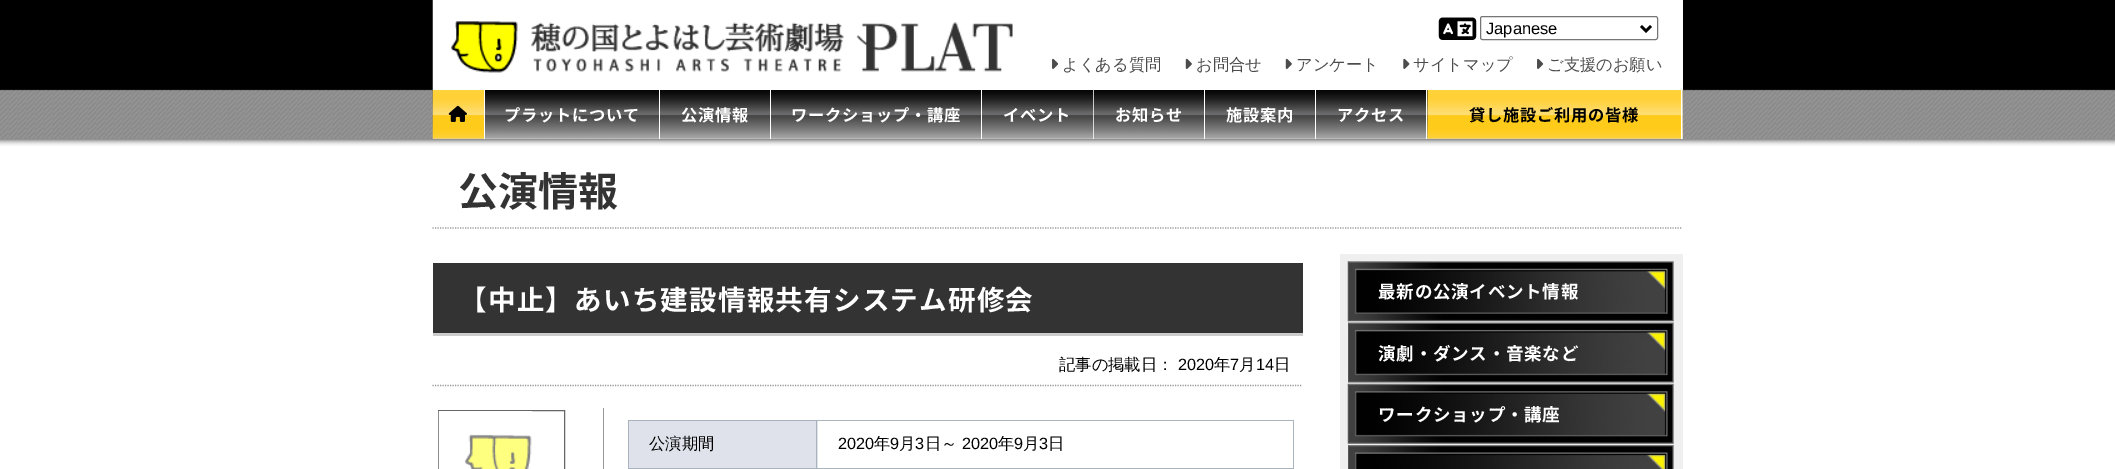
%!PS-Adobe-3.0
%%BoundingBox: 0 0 2115 469
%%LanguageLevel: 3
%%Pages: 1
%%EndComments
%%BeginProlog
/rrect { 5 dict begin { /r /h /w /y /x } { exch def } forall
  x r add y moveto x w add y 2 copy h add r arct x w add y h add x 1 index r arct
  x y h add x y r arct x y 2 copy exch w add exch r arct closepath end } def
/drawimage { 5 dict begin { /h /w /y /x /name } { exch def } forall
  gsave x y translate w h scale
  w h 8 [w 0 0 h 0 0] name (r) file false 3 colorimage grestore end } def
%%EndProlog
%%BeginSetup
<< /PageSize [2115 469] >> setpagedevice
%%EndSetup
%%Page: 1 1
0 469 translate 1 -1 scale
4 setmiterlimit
1 setgray
0 0 2115 469 rectfill
(images/1.raw) 0 0 2115 146 drawimage
433 0 1250 139 rectfill
(images/2.raw) 432 0 581 90 drawimage
(images/3.raw) 1438 17 39 23 drawimage
0.463 setgray
1480.5 16.5 177 23 2 rrect stroke
0 setgray
2.5 setlinewidth
newpath 1641 26 moveto 1646 31 lineto 1651 26 lineto stroke
(images/4.raw) 1052 58 7 11 drawimage
(images/5.raw) 1185 58 7 11 drawimage
(images/5.raw) 1285 58 7 11 drawimage
(images/6.raw) 1403 58 7 11 drawimage
(images/4.raw) 1537 58 7 11 drawimage
(images/7.raw) 432 90 1251 49 drawimage
(images/8.raw) 432 90 52 49 drawimage
1 setgray
484 90 1 49 rectfill
(images/9.raw) 448 105 19 17 drawimage
0.725 setgray
485 138 175 1 rectfill
1 setgray
659 90 1 49 rectfill
(images/10.raw) 660 138 112 1 drawimage
770 90 1 49 rectfill
(images/11.raw) 771 138 212 1 drawimage
981 90 1 49 rectfill
(images/12.raw) 982 138 111 1 drawimage
1093 90 1 49 rectfill
(images/13.raw) 1093 90 111 49 drawimage
1204 90 1 49 rectfill
(images/10.raw) 1205 138 112 1 drawimage
1315 90 1 49 rectfill
(images/14.raw) 1316 138 112 1 drawimage
1426 90 1 49 rectfill
(images/15.raw) 1427 90 256 49 drawimage
1681 90 1 49 rectfill
0.6 setgray
1.2 setlinewidth
[1.25 1.25] 0 setdash
newpath 432.5 228 moveto 1682.5 228 lineto stroke
0.2 setgray
433 263 870 70 rectfill
0.8 setgray
433 333 870 3 rectfill
0.6 setgray
newpath 432.5 385.5 moveto 1302.5 385.5 lineto stroke
603 408 1 61 rectfill
0.4 setgray
1 setlinewidth
[] 0 setdash
438.5 410.5 126 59 rectstroke
(images/16.raw) 438 411 94 58 drawimage
0.875 0.886 0.918 setrgbcolor
629 421 189 47 rectfill
0.663 0.706 0.737 setrgbcolor
816 420 478 1 rectfill
628 468 666 1 rectfill
816 420 1 49 rectfill
628 420 190 1 rectfill
628 420 1 49 rectfill
1293 420 1 49 rectfill
0.937 setgray
1340 254 343 215 rectfill
(images/17.raw) 1347 261 327 61 drawimage
(images/18.raw) 1348 322 326 61 drawimage
(images/19.raw) 1347 383 327 61 drawimage
(images/20.raw) 1348 445 326 24 drawimage
/LiberationSans-Regular [16.5 0 0 -16.5 0 0] selectfont
0 setgray
1486 34 moveto (Japanese) show
/WenQuanYiZenHei-Medium [16.25 0 0 -16.25 0 0] selectfont
0.298 setgray
1062 70 moveto (よくある質問) show
1196 70 moveto (お問合せ) show
1296 70 moveto (アンケート) show
1413 70 moveto (サイトマップ) show
1547 70 moveto (ご支援のお願い) show
/NotoSansJP-Bold [16.25 0 0 -16.25 0 0] selectfont
1 setgray
504 121 moveto 0.75 0 (プラットについて) ashow
681 121 moveto 0.75 0 (公演情報) ashow
791 121 moveto 0.75 0 (ワークショップ・講座) ashow
1003 121 moveto 0.75 0 (イベント) ashow
1115 121 moveto 0.75 0 (お知らせ) ashow
1226 121 moveto 0.75 0 (施設案内) ashow
1337 121 moveto 0.75 0 (アクセス) ashow
0 setgray
1469 121 moveto 0.75 0 (貸し施設ご利用の皆様) ashow
/NotoSansJP-Bold [40 0 0 -40 0 0] selectfont
0.2 setgray
458 206 moveto (公演情報) show
/NotoSansJP-Bold [27.5 0 0 -27.5 0 0] selectfont
1 setgray
459 310 moveto 1.25 0 (【中止】あいち建設情報共有システム研修会) ashow
/WenQuanYiZenHei-Medium [16.25 0 0 -16.25 0 0] selectfont
0 setgray
1059 370 moveto (記事の掲載日：) show
/LiberationSans-Regular [16.25 0 0 -16.25 0 0] selectfont
1178 370 moveto (2020) show
/WenQuanYiZenHei-Medium [16.25 0 0 -16.25 0 0] selectfont
1214 370 moveto (年) show
/LiberationSans-Regular [16.25 0 0 -16.25 0 0] selectfont
1230 370 moveto (7) show
/WenQuanYiZenHei-Medium [16.25 0 0 -16.25 0 0] selectfont
1239 370 moveto (月) show
/LiberationSans-Regular [16.25 0 0 -16.25 0 0] selectfont
1256 370 moveto (14) show
/WenQuanYiZenHei-Medium [16.25 0 0 -16.25 0 0] selectfont
1274 370 moveto (日) show
649 449 moveto (公演期間) show
/LiberationSans-Regular [16.25 0 0 -16.25 0 0] selectfont
838 449 moveto (2020) show
/WenQuanYiZenHei-Medium [16.25 0 0 -16.25 0 0] selectfont
874 449 moveto (年) show
/LiberationSans-Regular [16.25 0 0 -16.25 0 0] selectfont
890 449 moveto (9) show
/WenQuanYiZenHei-Medium [16.25 0 0 -16.25 0 0] selectfont
899 449 moveto (月) show
/LiberationSans-Regular [16.25 0 0 -16.25 0 0] selectfont
915 449 moveto (3) show
/WenQuanYiZenHei-Medium [16.25 0 0 -16.25 0 0] selectfont
925 449 moveto (日～) show
/LiberationSans-Regular [16.25 0 0 -16.25 0 0] selectfont
962 449 moveto (2020) show
/WenQuanYiZenHei-Medium [16.25 0 0 -16.25 0 0] selectfont
998 449 moveto (年) show
/LiberationSans-Regular [16.25 0 0 -16.25 0 0] selectfont
1014 449 moveto (9) show
/WenQuanYiZenHei-Medium [16.25 0 0 -16.25 0 0] selectfont
1023 449 moveto (月) show
/LiberationSans-Regular [16.25 0 0 -16.25 0 0] selectfont
1039 449 moveto (3) show
/WenQuanYiZenHei-Medium [16.25 0 0 -16.25 0 0] selectfont
1048 449 moveto (日) show
/NotoSansJP-Bold [17.5 0 0 -17.5 0 0] selectfont
1 setgray
1378 298 moveto 0.75 0 (最新の公演イベント情報) ashow
1378 360 moveto 0.75 0 (演劇・ダンス・音楽など) ashow
1378 421 moveto 0.75 0 (ワークショップ・講座) ashow
showpage
%%EOF
